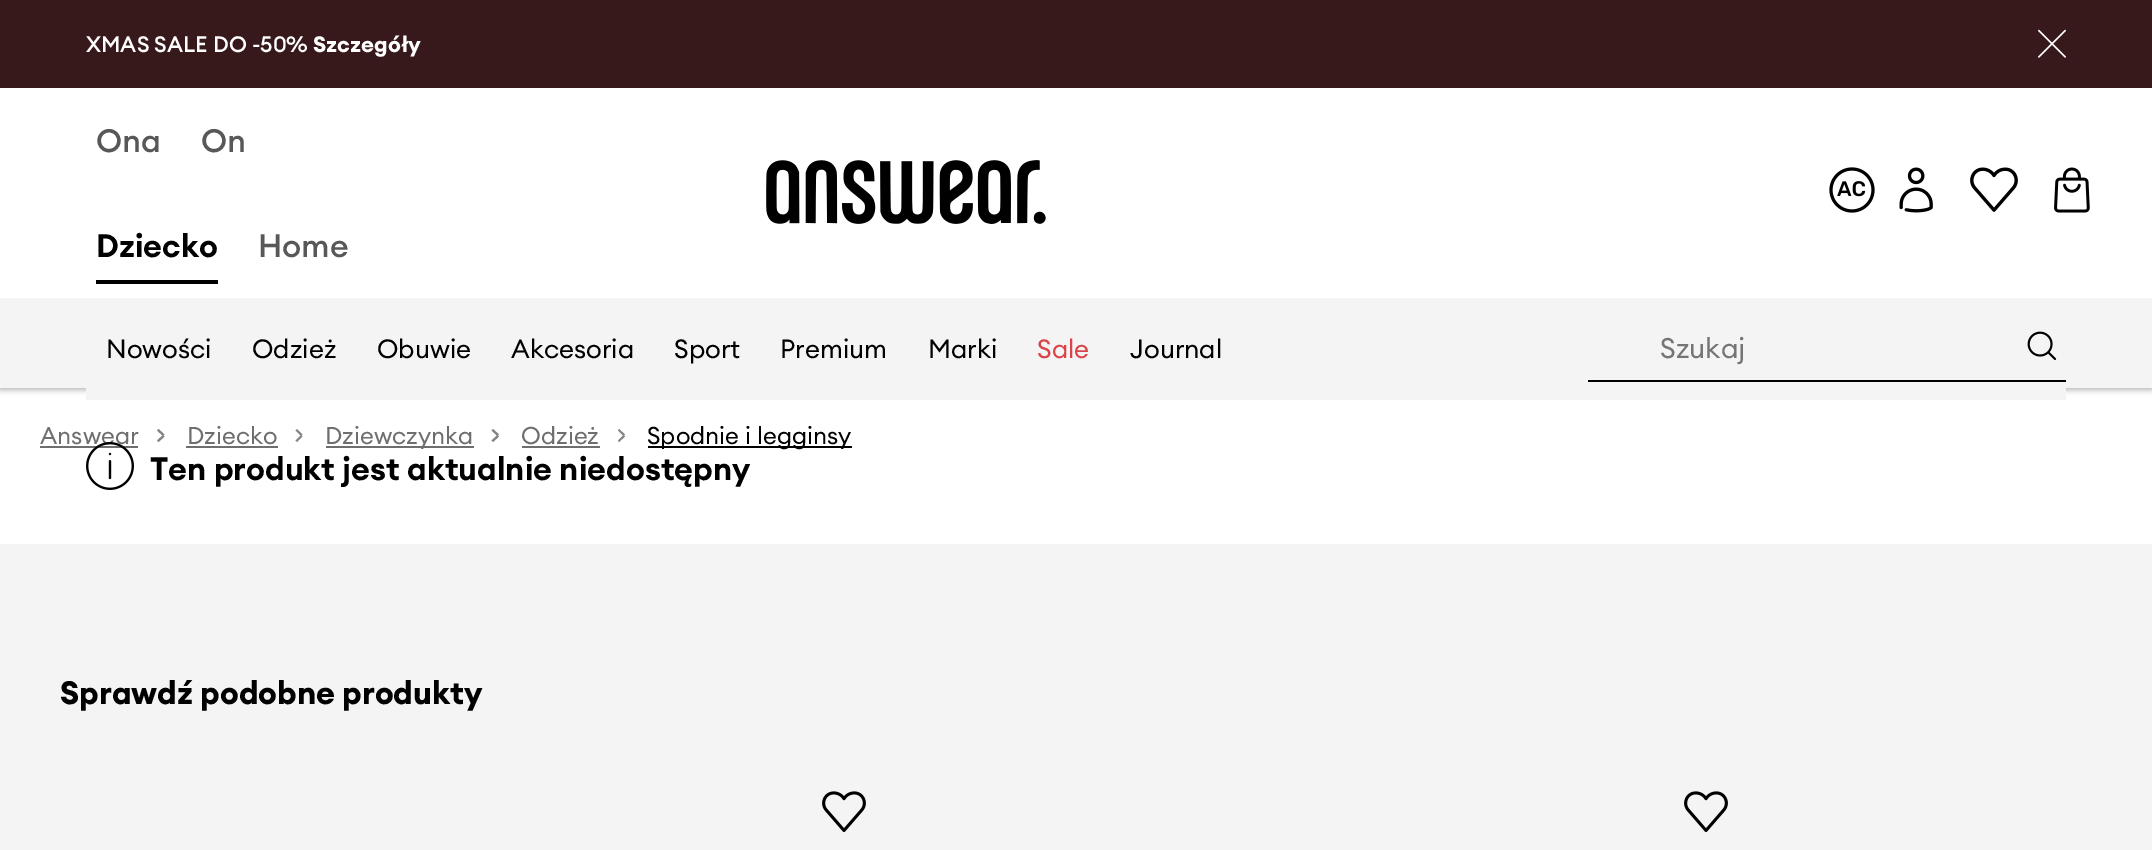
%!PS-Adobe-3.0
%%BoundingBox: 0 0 2152 850
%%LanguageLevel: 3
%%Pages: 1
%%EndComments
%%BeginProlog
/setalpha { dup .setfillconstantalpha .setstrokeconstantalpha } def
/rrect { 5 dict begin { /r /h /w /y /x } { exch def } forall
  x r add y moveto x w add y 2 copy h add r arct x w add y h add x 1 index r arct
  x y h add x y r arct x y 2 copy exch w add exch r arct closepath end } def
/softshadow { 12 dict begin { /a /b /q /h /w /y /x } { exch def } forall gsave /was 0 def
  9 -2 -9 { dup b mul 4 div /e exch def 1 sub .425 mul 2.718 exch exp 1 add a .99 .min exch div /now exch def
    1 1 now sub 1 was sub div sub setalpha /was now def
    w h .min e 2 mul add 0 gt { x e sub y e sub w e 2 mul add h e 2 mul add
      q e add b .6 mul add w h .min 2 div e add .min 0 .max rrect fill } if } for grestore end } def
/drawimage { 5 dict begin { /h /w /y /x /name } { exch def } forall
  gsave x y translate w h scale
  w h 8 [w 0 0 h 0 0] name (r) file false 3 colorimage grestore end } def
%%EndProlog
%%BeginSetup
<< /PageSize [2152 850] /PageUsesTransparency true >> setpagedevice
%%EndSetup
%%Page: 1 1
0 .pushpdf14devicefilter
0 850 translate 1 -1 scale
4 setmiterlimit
1 setgray
0 0 2152 850 rectfill
0.22 0.098 0.106 setrgbcolor
0 0 2152 88 rectfill
(images/1.raw) 2038 29 28 29 drawimage
gsave
newpath 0 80 moveto 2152 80 lineto 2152 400 lineto 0 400 lineto closepath 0 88 moveto 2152 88 lineto 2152 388 lineto 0 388 lineto closepath eoclip newpath
0 setgray
0 90 2152 300 0 3 0.3 softshadow
grestore
0 setgray
96 280 122 4 rectfill
(images/2.raw) 766 160 280 64 drawimage
(images/3.raw) 1829 167 46 46 drawimage
(images/4.raw) 1899 167 34 46 drawimage
(images/5.raw) 1970 167 48 45 drawimage
(images/6.raw) 2054 167 36 46 drawimage
0.957 setgray
0 298 2152 90 rectfill
86 388 1980 12 rectfill
0 setgray
1588 380 478 2 rectfill
(images/7.raw) 2027 331 30 29 drawimage
0.431 setgray
40 446 98 2 rectfill
0.518 setgray
newpath 157 440.5 moveto 163 435 lineto 164.5 436.5 lineto 158.5 442 lineto closepath fill
newpath 158.5 429 moveto 164.5 434.5 lineto 163 436 lineto 157 430.5 lineto closepath fill
0.431 setgray
186 446 92 2 rectfill
0.518 setgray
newpath 295.5 440.5 moveto 301 435 lineto 302.5 436.5 lineto 297 442 lineto closepath fill
newpath 297 429 moveto 302.5 434.5 lineto 301 436 lineto 295.5 430.5 lineto closepath fill
0.431 setgray
326 446 148 2 rectfill
0.518 setgray
newpath 491.5 440.5 moveto 497.5 435 lineto 499 436.5 lineto 493 442 lineto closepath fill
newpath 493 429 moveto 499 434.5 lineto 497.5 436 lineto 491.5 430.5 lineto closepath fill
0.431 setgray
522 446 78 2 rectfill
0.518 setgray
newpath 618 440.5 moveto 623.5 435 lineto 625 436.5 lineto 619 442 lineto closepath fill
newpath 619 429 moveto 625 434.5 lineto 623.5 436 lineto 618 430.5 lineto closepath fill
0 setgray
648 446 204 2 rectfill
0.957 setgray
0 544 2152 306 rectfill
(images/9.raw) 822 791 44 41 drawimage
(images/9.raw) 1684 791 44 41 drawimage
/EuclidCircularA-Medium [22 0 0 -22 0 0] selectfont
1 setgray
86 52 moveto (XMAS SALE DO -50%) show
/EuclidCircularA-Bold [22 0 0 -22 0 0] selectfont
313 52 moveto (Szczegóły) show
/EuclidCircularA-Medium [32 0 0 -32 0 0] selectfont
0.345 setgray
96 152 moveto (Ona) show
201 152 moveto (On) show
/EuclidCircularA-SemiBold [32 0 0 -32 0 0] selectfont
0 setgray
96 257 moveto (Dziecko) show
/EuclidCircularA-Medium [32 0 0 -32 0 0] selectfont
0.345 setgray
258 257 moveto (Home) show
/EuclidCircularA-Regular [26 0 0 -26 0 0] selectfont
0 setgray
106 358 moveto (Nowości) show
252 358 moveto (Odzież) show
377 358 moveto (Obuwie) show
511 358 moveto (Akcesoria) show
674 358 moveto (Sport) show
780 358 moveto (Premium) show
928 358 moveto (Marki) show
0.855 0.267 0.282 setrgbcolor
1037 358 moveto (Sale) show
0 setgray
1130 358 moveto (Journal) show
/EuclidCircularA-Regular [28 0 0 -28 0 0] selectfont
0.459 setgray
1660 358 moveto (Szukaj) show
/EuclidCircularA-Regular [24 0 0 -24 0 0] selectfont
0.431 setgray
40 444 moveto (Answear) show
187 444 moveto (Dziecko) show
325 444 moveto (Dziewczynka) show
521 444 moveto (Odzież) show
0 setgray
647 444 moveto (Spodnie i legginsy) show
(images/8.raw) 86 442 48 48 drawimage
/EuclidCircularA-SemiBold [32 0 0 -32 0 0] selectfont
150 480 moveto (Ten produkt jest aktualnie niedostępny) show
/EuclidCircularA-Bold [32 0 0 -32 0 0] selectfont
60 704 moveto (Sprawdź podobne produkty) show
.poppdf14devicefilter showpage
%%EOF
